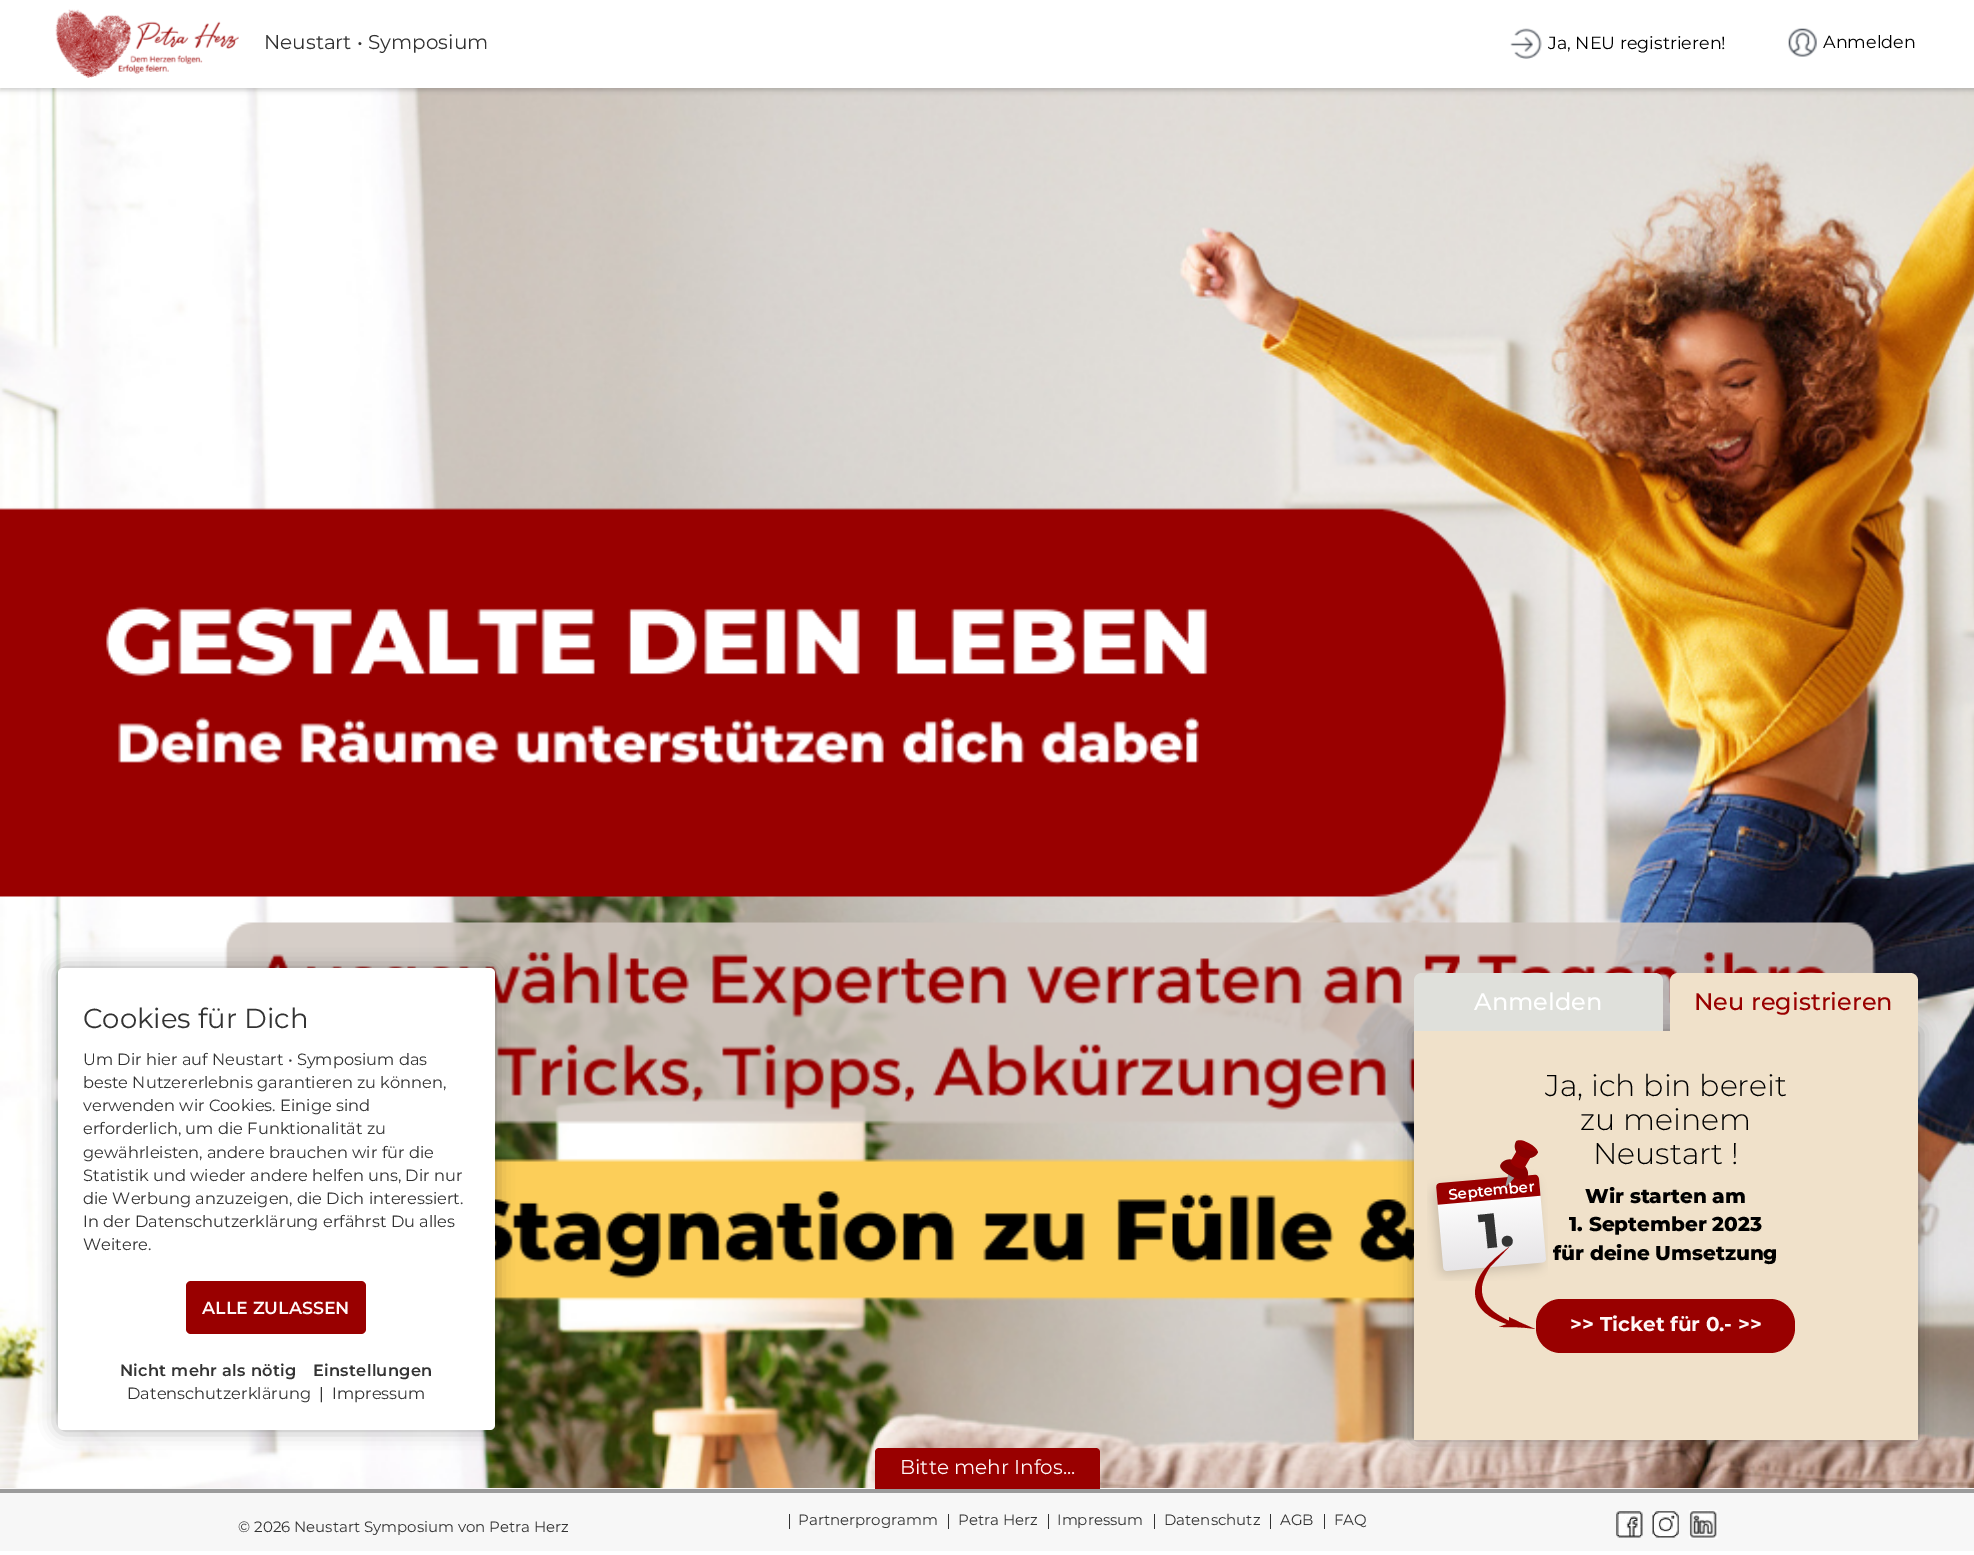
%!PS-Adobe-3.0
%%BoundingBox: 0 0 1974 1555
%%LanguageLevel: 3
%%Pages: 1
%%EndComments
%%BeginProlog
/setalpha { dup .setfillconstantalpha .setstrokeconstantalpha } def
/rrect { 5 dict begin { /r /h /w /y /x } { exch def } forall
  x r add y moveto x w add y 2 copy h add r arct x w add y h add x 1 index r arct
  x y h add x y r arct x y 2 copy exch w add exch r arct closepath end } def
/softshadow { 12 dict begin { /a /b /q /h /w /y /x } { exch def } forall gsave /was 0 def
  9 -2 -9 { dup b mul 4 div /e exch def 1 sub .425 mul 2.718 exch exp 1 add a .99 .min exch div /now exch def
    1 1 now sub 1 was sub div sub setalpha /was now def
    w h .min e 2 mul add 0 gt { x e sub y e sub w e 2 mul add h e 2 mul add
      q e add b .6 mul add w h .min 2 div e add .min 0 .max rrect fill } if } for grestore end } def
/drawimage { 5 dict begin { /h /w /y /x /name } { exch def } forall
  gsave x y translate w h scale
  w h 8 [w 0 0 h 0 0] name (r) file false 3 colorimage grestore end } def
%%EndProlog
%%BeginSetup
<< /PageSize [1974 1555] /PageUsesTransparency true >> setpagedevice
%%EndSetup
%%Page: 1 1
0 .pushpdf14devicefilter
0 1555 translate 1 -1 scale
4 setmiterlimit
1 setgray
0 0 1974 1555 rectfill
(images/4.raw) 0 88 1974 1400 drawimage
0 setgray
0 3 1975 87 0 2.5 0.2 softshadow
1 setgray
0 0 1974 88 rectfill
(images/1.raw) 55 9 184 69 drawimage
(images/2.raw) 1510 28 32 31 drawimage
(images/3.raw) 1788 28 29 29 drawimage
0 setgray
58 968 437 462 5 9 0.34 softshadow
1 setgray
58 968 437 462 5 rrect fill
0.6 0 0 setrgbcolor
186 1281 180 53 5 rrect fill
0 setgray
1414 1031 504 409 0 9 0.34 softshadow
0.875 0.878 0.859 setrgbcolor
newpath 1422 973 moveto 1655 973 lineto 1659.5 973 1663 976.5 1663 981 curveto 1663 1031 lineto 1414 1031 lineto 1414 981 lineto 1414 976.5 1417.5 973 1422 973 curveto closepath fill
0.941 0.882 0.792 setrgbcolor
newpath 1678 973 moveto 1910 973 lineto 1914.5 973 1918 976.5 1918 981 curveto 1918 1031 lineto 1670 1031 lineto 1670 981 lineto 1670 976.5 1673.5 973 1678 973 curveto closepath fill
1414 1031 504 409 rectfill
(images/5.raw) 1427 1140 121 141 drawimage
0.6 0 0 setrgbcolor
1536 1299 259 54 25 rrect fill
0.969 setgray
0 1488 1974 63 rectfill
0.608 setgray
0 1489 1974 4 rectfill
0.6 0 0 setrgbcolor
newpath 879 1448 moveto 1096 1448 lineto 1098 1448 1100 1450 1100 1452 curveto 1100 1489 lineto 875 1489 lineto 875 1452 lineto 875 1450 877 1448 879 1448 curveto closepath fill
0.2 setgray
789 1514 1 15 rectfill
948 1514 1 15 rectfill
1048 1514 1 15 rectfill
1154 1514 1 15 rectfill
1270 1514 1 15 rectfill
1324 1514 1 15 rectfill
(images/6.raw) 1616 1511 27 27 drawimage
(images/7.raw) 1652 1511 27 27 drawimage
(images/8.raw) 1689 1510 29 29 drawimage
/Montserrat-Regular [20 0 0 -20 0 0] selectfont
264 49 moveto (Neustart • Symposium) show
/Montserrat-Regular [17.5 0 0 -17.5 0 0] selectfont
0 setgray
1548 49 moveto (Ja, NEU registrieren!) show
1823 48 moveto (Anmelden) show
/Montserrat-Regular [27.5 0 0 -27.5 0 0] selectfont
0.2 setgray
83 1028 moveto (Cookies für Dich) show
/Montserrat-Regular [16.25 0 0 -16.25 0 0] selectfont
83 1065 moveto (Um Dir hier auf Neustart • Symposium das) show
83 1088 moveto (beste Nutzererlebnis garantieren zu können,) show
83 1111 moveto (verwenden wir Cookies. Einige sind) show
83 1134 moveto (erforderlich, um die Funktionalität zu) show
83 1158 moveto (gewährleisten, andere brauchen wir für die) show
83 1181 moveto (Statistik und wieder andere helfen uns, Dir nur) show
83 1204 moveto (die Werbung anzuzeigen, die Dich interessiert.) show
83 1227 moveto (In der Datenschutzerklärung erfährst Du alles) show
83 1250 moveto (Weitere.) show
/Montserrat-SemiBold [17.5 0 0 -17.5 0 0] selectfont
1 0.969 0.969 setrgbcolor
202 1314 moveto (ALLE ZULASSEN) show
/Montserrat-SemiBold [16.25 0 0 -16.25 0 0] selectfont
0.2 setgray
120 1376 moveto 0.25 0 (Nicht mehr als nötig) ashow
313 1376 moveto 0.25 0 (Einstellungen) ashow
/Montserrat-Regular [16.25 0 0 -16.25 0 0] selectfont
127 1399 moveto (Datenschutzerklärung) show
319 1399 moveto (|) show
332 1399 moveto (Impressum) show
/Montserrat-Medium [24 0 0 -24 0 0] selectfont
1 setgray
1474 1010 moveto (Anmelden) show
0.6 0 0 setrgbcolor
1694 1010 moveto (Neu registrieren) show
/Montserrat-Light [30 0 0 -30 0 0] selectfont
0 setgray
1545 1096 moveto (Ja, ich bin bereit) show
1580 1130 moveto (zu meinem) show
1593 1164 moveto (Neustart !) show
/Montserrat-SemiBold [15 0 0 -15 0 0] selectfont
1 setgray
gsave 1449 1200 translate -6 rotate 0 0 moveto (September) show grestore
/Montserrat-ExtraBold [49 0 0 -49 0 0] selectfont
0.2 setgray
gsave 1481 1249 translate -6 rotate 0 0 moveto (1.) show grestore
/Montserrat-ExtraBold [20 0 0 -20 0 0] selectfont
0 setgray
1585 1203 moveto (Wir starten am) show
1569 1231 moveto (1. September 2023) show
1553 1260 moveto (für deine Umsetzung) show
0.6 0 0 setrgbcolor
newpath 1501 1327 moveto 1512 1327 1523 1327 1535 1329 curveto 1519 1322 lineto 1516 1320 1512 1319 1509 1317 curveto 1509 1321 lineto 1494 1313 1480 1305 1482 1286 curveto 1483 1279 1486 1273 1490 1267 curveto 1509 1247 lineto 1500 1254 1491 1261 1484 1270 curveto 1464 1296 1480 1316 1507 1324 curveto 1499 1327 lineto closepath eofill
/Montserrat-Bold [20 0 0 -20 0 0] selectfont
1 0.969 0.969 setrgbcolor
1570 1331 moveto (>> Ticket für 0.- >>) show
/Montserrat-Regular [20 0 0 -20 0 0] selectfont
900 1474 moveto (Bitte mehr Infos...) show
/Montserrat-Regular [15 0 0 -15 0 0] selectfont
0.2 setgray
238 1532 moveto (© 2026 Neustart Symposium von Petra Herz) show
798 1525 moveto (Partnerprogramm) show
958 1525 moveto (Petra Herz) show
1057 1525 moveto (Impressum) show
1164 1525 moveto (Datenschutz) show
1280 1525 moveto (AGB) show
1334 1525 moveto (FAQ) show
.poppdf14devicefilter showpage
%%EOF
